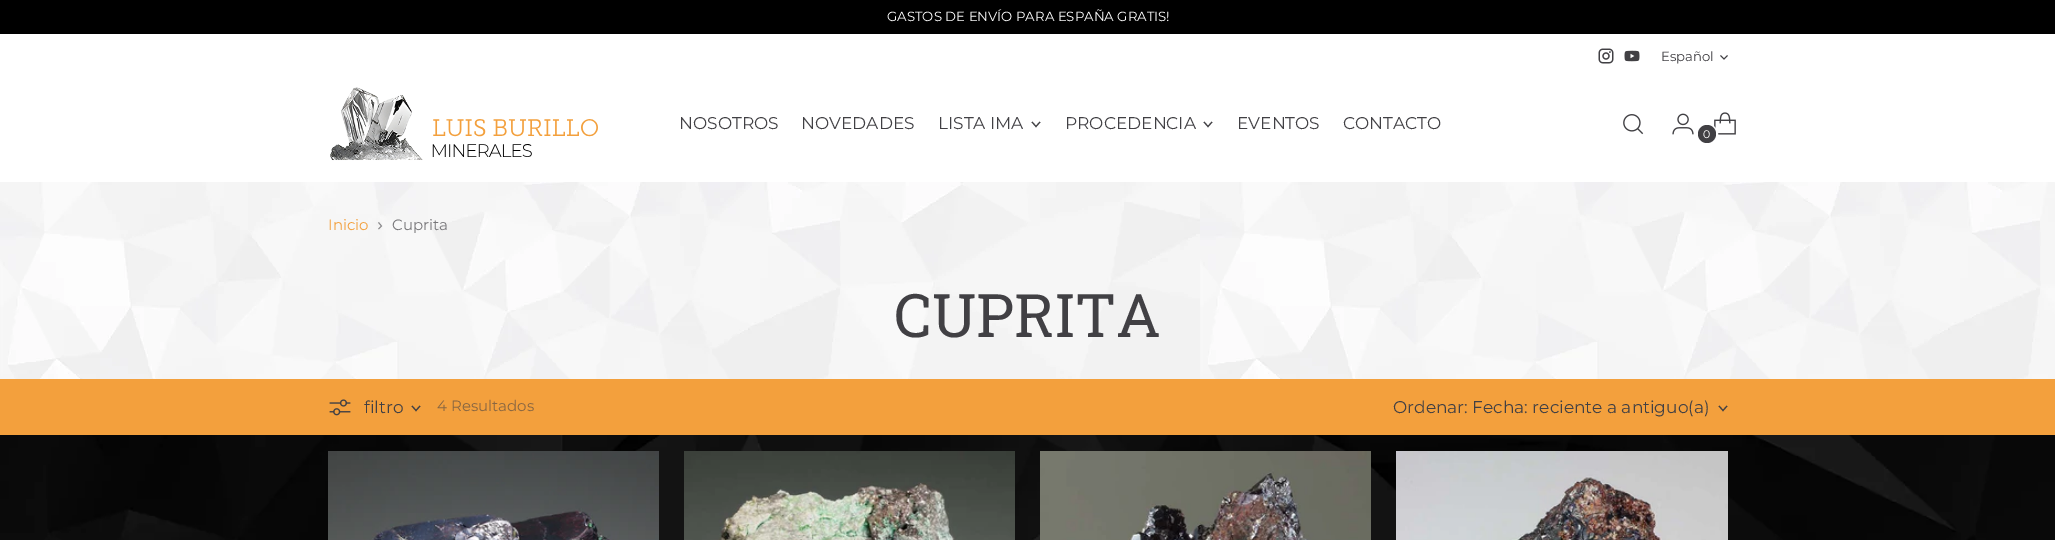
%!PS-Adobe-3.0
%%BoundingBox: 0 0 2055 540
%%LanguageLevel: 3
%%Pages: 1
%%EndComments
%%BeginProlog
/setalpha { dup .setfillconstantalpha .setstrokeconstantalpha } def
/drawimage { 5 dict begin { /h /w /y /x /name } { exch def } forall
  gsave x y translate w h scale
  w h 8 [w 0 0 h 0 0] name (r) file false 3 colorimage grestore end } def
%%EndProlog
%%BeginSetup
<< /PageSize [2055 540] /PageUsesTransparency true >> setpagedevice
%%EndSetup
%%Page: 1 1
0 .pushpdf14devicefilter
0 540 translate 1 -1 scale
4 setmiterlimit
1 setgray
0 0 2055 540 rectfill
0 setgray
0 0 2055 34 rectfill
(images/1.raw) 1598 48 16 16 drawimage
(images/2.raw) 1624 50 16 12 drawimage
0.255 0.251 0.267 setrgbcolor
0.9 setlinewidth
newpath 1720.5 55.5 moveto 1724 59 lineto 1727.5 55.5 lineto stroke
(images/3.raw) 330 87 268 74 drawimage
1.1 setlinewidth
newpath 1032 122 moveto 1036 126.5 lineto 1040 122 lineto stroke
newpath 1204 122 moveto 1208 126.5 lineto 1212 122 lineto stroke
(images/4.raw) 1623 114 21 21 drawimage
(images/5.raw) 1672 113 22 22 drawimage
(images/6.raw) 1714 112 22 23 drawimage
1 setgray
2 setlinewidth
newpath 1707.5 134.5 9.5 0 360 arc closepath stroke
0.255 0.251 0.267 setrgbcolor
newpath 1707 134 9 0 360 arc closepath fill
(images/7.raw) 0 182 2055 197 drawimage
0.6 setalpha
0.9 setlinewidth
newpath 378.5 229 moveto 381.5 226 lineto 378.5 222.5 lineto stroke
1 setalpha
(images/8.raw) 0 435 2055 105 drawimage
0.953 0.627 0.239 setrgbcolor
0 379 2055 56 rectfill
(images/9.raw) 329 399 22 17 drawimage
0.255 0.251 0.267 setrgbcolor
1.1 setlinewidth
newpath 412 406 moveto 416 410.5 lineto 420 406 lineto stroke
newpath 1719 406 moveto 1723 410.5 lineto 1727 406 lineto stroke
(images/10.raw) 328 451 331 89 drawimage
(images/11.raw) 684 451 331 89 drawimage
(images/12.raw) 1040 451 331 89 drawimage
(images/13.raw) 1396 451 332 89 drawimage
/Montserrat-Regular [13.25 0 0 -13.25 0 0] selectfont
1 setgray
887 21 moveto (GASTOS DE ENVÍO PARA ESPAÑA GRATIS!) show
0.255 0.251 0.267 setrgbcolor
1661 61 moveto (Español) show
/Montserrat-Regular [17 0 0 -17 0 0] selectfont
679 129 moveto (NOSOTROS) show
801 129 moveto (NOVEDADES) show
938 129 moveto (LISTA IMA) show
1065 129 moveto (PROCEDENCIA) show
1237 129 moveto (EVENTOS) show
1343 129 moveto (CONTACTO) show
/Montserrat-Regular [11 0 0 -11 0 0] selectfont
1 setgray
1703 138 moveto (0) show
/Montserrat-Regular [15 0 0 -15 0 0] selectfont
0.953 0.627 0.239 setrgbcolor
328 230 moveto (Inicio) show
0.467 0.463 0.475 setrgbcolor
392 230 moveto (Cuprita) show
/RobotoSlab-Regular [60 0 0 -60 0 0] selectfont
0.255 0.251 0.267 setrgbcolor
894 337 moveto (CUPRITA) show
/Montserrat-Regular [17 0 0 -17 0 0] selectfont
364 413 moveto (filtro) show
/Montserrat-Regular [15 0 0 -15 0 0] selectfont
0.533 0.4 0.255 setrgbcolor
437 411 moveto (4 Resultados) show
/Montserrat-Regular [17 0 0 -17 0 0] selectfont
0.255 0.251 0.267 setrgbcolor
1393 413 moveto (Ordenar: Fecha: reciente a antiguo\(a\)) show
.poppdf14devicefilter showpage
%%EOF
